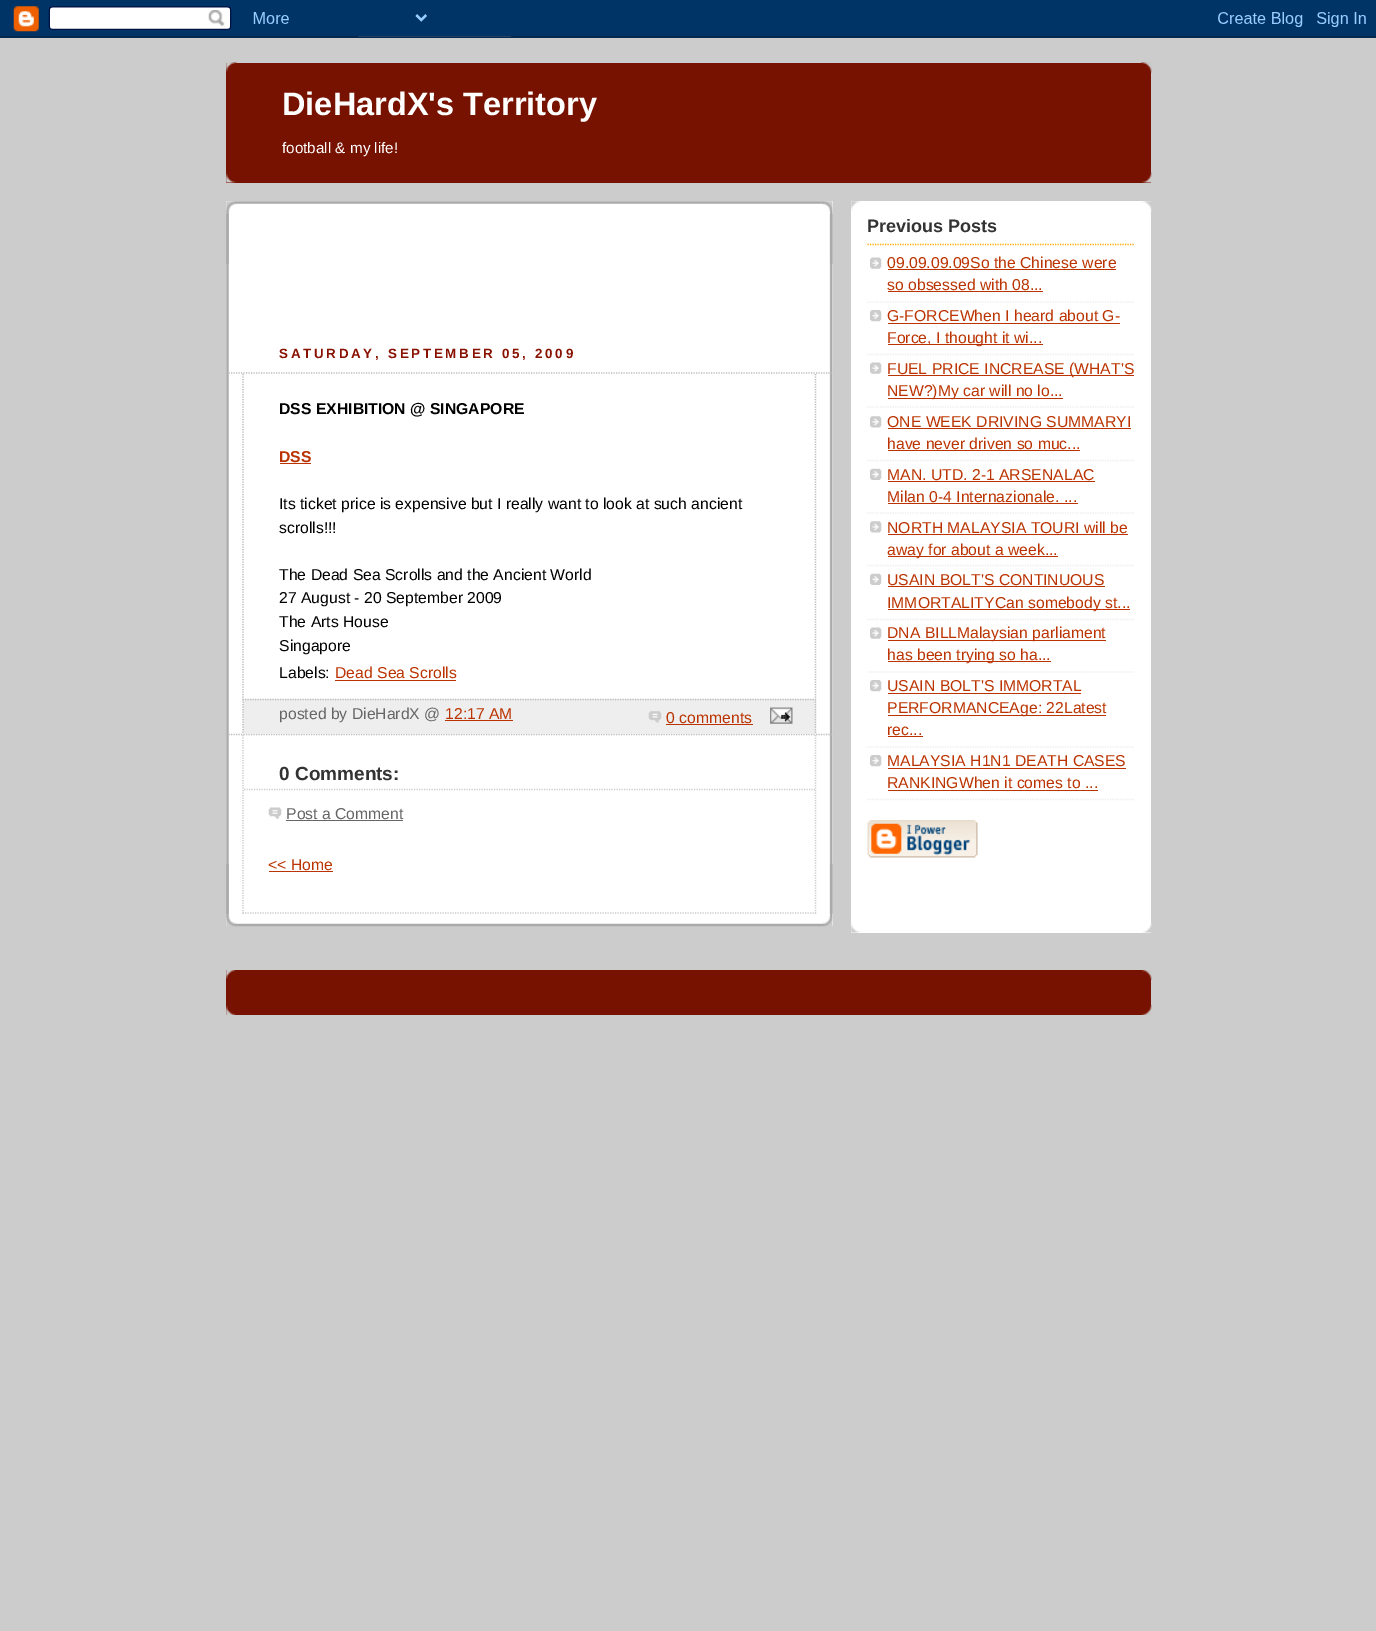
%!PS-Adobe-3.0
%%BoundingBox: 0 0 1376 1631
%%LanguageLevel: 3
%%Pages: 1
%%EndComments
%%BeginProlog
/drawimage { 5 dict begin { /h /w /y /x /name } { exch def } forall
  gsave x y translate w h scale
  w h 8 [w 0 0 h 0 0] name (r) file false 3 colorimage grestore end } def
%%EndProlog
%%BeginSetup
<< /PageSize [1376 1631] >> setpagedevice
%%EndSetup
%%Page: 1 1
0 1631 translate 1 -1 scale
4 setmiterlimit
0.8 setgray
0 0 1376 1631 rectfill
(images/1.raw) 0 0 1376 38 drawimage
0.467 0.067 0 setrgbcolor
226 63 925 120 rectfill
(images/2.raw) 226 62 926 11 drawimage
(images/3.raw) 226 172 926 11 drawimage
1 setgray
226 201 607 725 rectfill
(images/4.raw) 226 863 607 64 drawimage
(images/5.raw) 226 201 607 63 drawimage
(images/6.raw) 226 213 607 701 drawimage
0.733 setgray
1.2 setlinewidth
[1.25 1.25] 0 setdash
newpath 226 373 moveto 832.5 373 lineto stroke
newpath 226 734.5 moveto 832.5 734.5 lineto stroke
newpath 815.5 374 moveto 815.5 699 lineto stroke
newpath 243 374 moveto 243 699 lineto stroke
0.733 0.2 0 setrgbcolor
280 463 31 1 rectfill
335 680 121 1 rectfill
0.933 setgray
243 699 573 35 rectfill
0.733 setgray
newpath 242.5 699.5 moveto 816 699.5 lineto stroke
newpath 815.5 699 moveto 815.5 734 lineto stroke
newpath 243 699 moveto 243 734 lineto stroke
0.733 0.2 0 setrgbcolor
445 720 68 1 rectfill
(images/7.raw) 648 711 14 12 drawimage
666 724 87 1 rectfill
(images/8.raw) 770 707 23 17 drawimage
0.8 setgray
newpath 815.5 735 moveto 815.5 914 lineto stroke
newpath 242.5 913 moveto 816 913 lineto stroke
newpath 243 735 moveto 243 914 lineto stroke
newpath 244 789.5 moveto 815 789.5 lineto stroke
(images/9.raw) 268 807 14 12 drawimage
0.4 setgray
286 820 117 1 rectfill
0.733 0.2 0 setrgbcolor
269 871 64 1 rectfill
1 setgray
851 201 300 732 rectfill
(images/10.raw) 851 201 301 10 drawimage
(images/11.raw) 851 922 301 11 drawimage
1 0.667 0 setrgbcolor
newpath 867.5 244.5 moveto 1135 244.5 lineto stroke
(images/12.raw) 870 257 12 12 drawimage
0.933 setgray
newpath 867.5 302 moveto 1135 302 lineto stroke
0.733 0.2 0 setrgbcolor
888 269 228 1 rectfill
888 291 155 1 rectfill
(images/13.raw) 870 310 12 12 drawimage
0.933 setgray
newpath 867.5 354.5 moveto 1135 354.5 lineto stroke
0.733 0.2 0 setrgbcolor
888 323 232 1 rectfill
888 344 155 1 rectfill
(images/12.raw) 870 362 12 12 drawimage
0.933 setgray
newpath 867.5 407 moveto 1135 407 lineto stroke
0.733 0.2 0 setrgbcolor
888 375 246 1 rectfill
888 398 175 1 rectfill
(images/14.raw) 870 416 12 12 drawimage
0.933 setgray
newpath 867.5 460.5 moveto 1135 460.5 lineto stroke
0.733 0.2 0 setrgbcolor
888 428 243 1 rectfill
888 450 192 1 rectfill
(images/15.raw) 870 468 12 12 drawimage
0.933 setgray
newpath 867.5 513 moveto 1135 513 lineto stroke
0.733 0.2 0 setrgbcolor
888 481 207 1 rectfill
888 503 190 1 rectfill
(images/14.raw) 870 521 12 12 drawimage
0.933 setgray
newpath 867.5 565.5 moveto 1135 565.5 lineto stroke
0.733 0.2 0 setrgbcolor
888 534 240 1 rectfill
888 556 170 1 rectfill
(images/15.raw) 870 573 12 12 drawimage
0.933 setgray
newpath 867.5 619.5 moveto 1135 619.5 lineto stroke
0.733 0.2 0 setrgbcolor
888 586 217 1 rectfill
888 609 242 1 rectfill
(images/12.raw) 870 627 12 12 drawimage
0.933 setgray
newpath 867.5 672 moveto 1135 672 lineto stroke
0.733 0.2 0 setrgbcolor
888 640 218 1 rectfill
888 661 163 1 rectfill
(images/13.raw) 870 680 12 12 drawimage
0.933 setgray
newpath 867.5 747 moveto 1135 747 lineto stroke
0.733 0.2 0 setrgbcolor
888 693 193 1 rectfill
888 715 218 1 rectfill
888 736 35 1 rectfill
(images/13.raw) 870 755 12 12 drawimage
0.933 setgray
newpath 867.5 799.5 moveto 1135 799.5 lineto stroke
0.733 0.2 0 setrgbcolor
888 768 238 1 rectfill
888 790 210 1 rectfill
(images/16.raw) 867 820 111 38 drawimage
0.467 0.067 0 setrgbcolor
226 970 925 45 rectfill
(images/17.raw) 226 970 926 10 drawimage
(images/18.raw) 226 1005 926 10 drawimage
/LiberationSans-Bold [32.5 0 0 -32.5 0 0] selectfont
1 setgray
282 115 moveto (DieHardX's Territory) show
/LiberationSans-Regular [15.25 0 0 -15.25 0 0] selectfont
282 153 moveto (football & my life!) show
/LiberationSans-Bold [13.4 0 0 -13.4 0 0] selectfont
0.533 0.067 0 setrgbcolor
279 358 moveto 2.7 0 (SATURDAY, SEPTEMBER 05, 2009) ashow
/LiberationSans-Bold [15.75 0 0 -15.75 0 0] selectfont
0 setgray
279 414 moveto (DSS EXHIBITION @ SINGAPORE) show
0.733 0.2 0 setrgbcolor
279 462 moveto (DSS) show
/LiberationSans-Regular [15.75 0 0 -15.75 0 0] selectfont
0 setgray
279 509 moveto (Its ticket price is expensive but I really want to look at such ancient) show
279 533 moveto (scrolls!!!) show
279 580 moveto (The Dead Sea Scrolls and the Ancient World) show
279 603 moveto (27 August - 20 September 2009) show
279 627 moveto (The Arts House) show
279 651 moveto (Singapore) show
279 678 moveto (Labels:) show
0.733 0.2 0 setrgbcolor
335 678 moveto (Dead Sea Scrolls) show
0.4 setgray
279 719 moveto (posted by DieHardX @) show
0.733 0.2 0 setrgbcolor
445 719 moveto (12:17 AM) show
666 723 moveto (0 comments) show
/LiberationSans-Bold [19 0 0 -19 0 0] selectfont
0.2 setgray
279 780 moveto (0 Comments:) show
/LiberationSans-Regular [15.75 0 0 -15.75 0 0] selectfont
0.4 setgray
286 819 moveto (Post a Comment) show
0.733 0.2 0 setrgbcolor
268 870 moveto (<< Home) show
/LiberationSans-Bold [18 0 0 -18 0 0] selectfont
0.2 setgray
867 232 moveto (Previous Posts) show
/LiberationSans-Regular [15.75 0 0 -15.75 0 0] selectfont
0.733 0.2 0 setrgbcolor
887 268 moveto (09.09.09.09So the Chinese were) show
887 290 moveto (so obsessed with 08...) show
887 321 moveto (G-FORCEWhen I heard about G-) show
887 343 moveto (Force, I thought it wi...) show
887 374 moveto (FUEL PRICE INCREASE \(WHAT'S) show
887 396 moveto (NEW?\)My car will no lo...) show
887 427 moveto (ONE WEEK DRIVING SUMMARYI) show
887 449 moveto (have never driven so muc...) show
887 480 moveto (MAN. UTD. 2-1 ARSENALAC) show
887 502 moveto (Milan 0-4 Internazionale. ...) show
887 533 moveto (NORTH MALAYSIA TOURI will be) show
887 555 moveto (away for about a week...) show
887 585 moveto (USAIN BOLT'S CONTINUOUS) show
887 608 moveto (IMMORTALITYCan somebody st...) show
887 638 moveto (DNA BILLMalaysian parliament) show
887 660 moveto (has been trying so ha...) show
887 691 moveto (USAIN BOLT'S IMMORTAL) show
887 713 moveto (PERFORMANCEAge: 22Latest) show
887 735 moveto (rec...) show
887 766 moveto (MALAYSIA H1N1 DEATH CASES) show
887 788 moveto (RANKINGWhen it comes to ...) show
showpage
%%EOF
